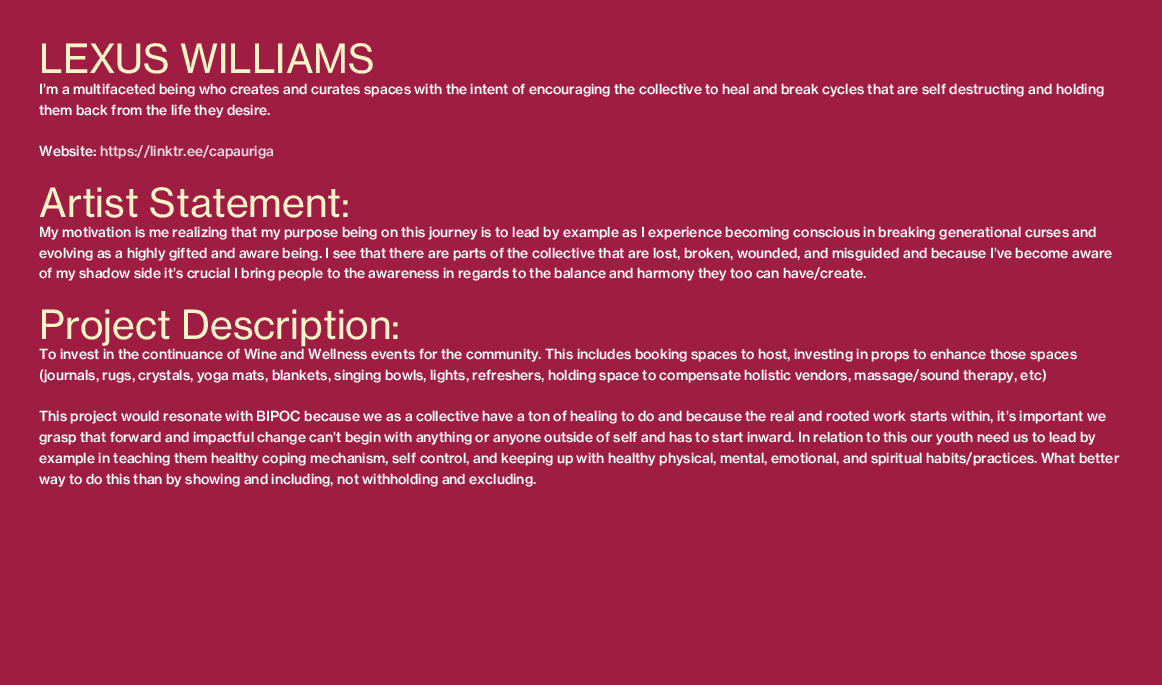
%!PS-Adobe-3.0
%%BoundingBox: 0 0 1162 685
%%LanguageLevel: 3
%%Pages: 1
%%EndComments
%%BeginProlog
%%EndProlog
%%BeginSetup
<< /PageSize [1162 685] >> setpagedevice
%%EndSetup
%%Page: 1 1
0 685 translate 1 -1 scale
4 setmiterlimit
0.624 0.11 0.263 setrgbcolor
0 0 1162 685 rectfill
/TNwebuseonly-Regular [39.5 0 0 -39.5 0 0] selectfont
0.969 0.961 0.78 setrgbcolor
39 73 moveto (LEXUS WILLIAMS) show
/TNwebuseonly-Medium [13.8 0 0 -13.8 0 0] selectfont
1 setgray
39 94 moveto (I’m a multifaceted being who creates and curates spaces with the intent of encouraging the collective to heal and break cycles that are self destructing and holding) show
39 115 moveto (them back from the life they desire.) show
39 156 moveto (Website:) show
0.945 0.867 0.89 setrgbcolor
100 156 moveto (https://linktr.ee/capauriga) show
/TNwebuseonly-Regular [39.5 0 0 -39.5 0 0] selectfont
0.969 0.961 0.78 setrgbcolor
39 217 moveto (Artist Statement:) show
/TNwebuseonly-Medium [13.8 0 0 -13.8 0 0] selectfont
1 setgray
39 237 moveto (My motivation is me realizing that my purpose being on this journey is to lead by example as I experience becoming conscious in breaking generational curses and) show
39 258 moveto (evolving as a highly gifted and aware being. I see that there are parts of the collective that are lost, broken, wounded, and misguided and because I’ve become aware) show
39 278 moveto (of my shadow side it’s crucial I bring people to the awareness in regards to the balance and harmony they too can have/create.) show
/TNwebuseonly-Regular [39.5 0 0 -39.5 0 0] selectfont
0.969 0.961 0.78 setrgbcolor
39 339 moveto (Project Description:) show
/TNwebuseonly-Medium [13.8 0 0 -13.8 0 0] selectfont
1 setgray
39 359 moveto (To invest in the continuance of Wine and Wellness events for the community. This includes booking spaces to host, investing in props to enhance those spaces) show
39 380 moveto (\(journals, rugs, crystals, yoga mats, blankets, singing bowls, lights, refreshers, holding space to compensate holistic vendors, massage/sound therapy, etc\)) show
39 421 moveto (This project would resonate with BIPOC because we as a collective have a ton of healing to do and because the real and rooted work starts within, it’s important we) show
39 442 moveto (grasp that forward and impactful change can’t begin with anything or anyone outside of self and has to start inward. In relation to this our youth need us to lead by) show
39 463 moveto (example in teaching them healthy coping mechanism, self control, and keeping up with healthy physical, mental, emotional, and spiritual habits/practices. What better) show
39 484 moveto (way to do this than by showing and including, not withholding and excluding.) show
showpage
%%EOF
